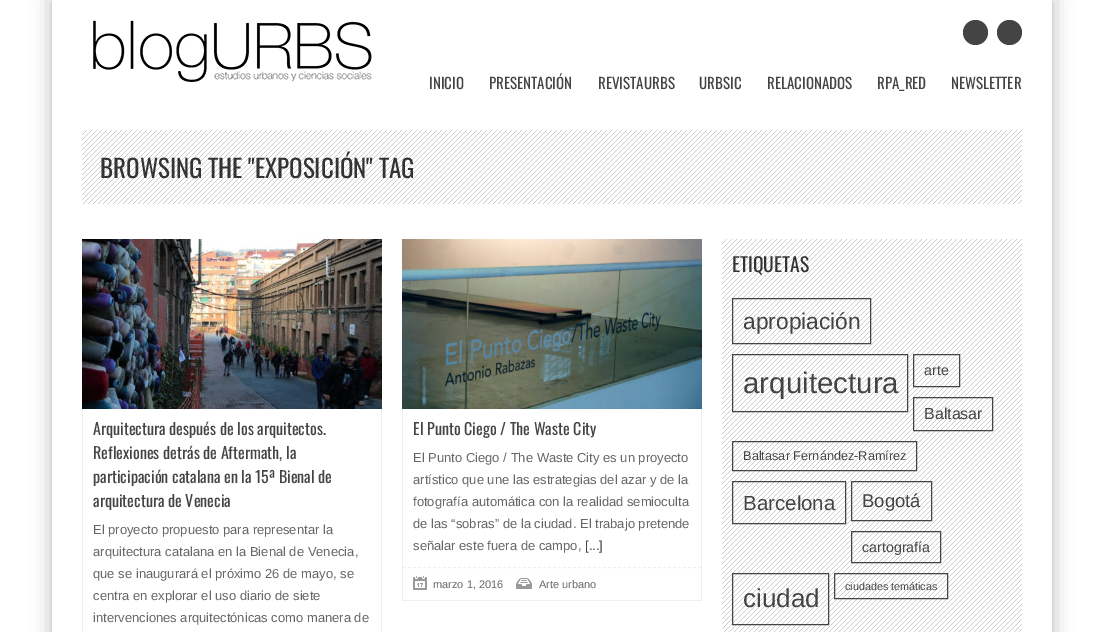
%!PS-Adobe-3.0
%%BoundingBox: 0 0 1103 632
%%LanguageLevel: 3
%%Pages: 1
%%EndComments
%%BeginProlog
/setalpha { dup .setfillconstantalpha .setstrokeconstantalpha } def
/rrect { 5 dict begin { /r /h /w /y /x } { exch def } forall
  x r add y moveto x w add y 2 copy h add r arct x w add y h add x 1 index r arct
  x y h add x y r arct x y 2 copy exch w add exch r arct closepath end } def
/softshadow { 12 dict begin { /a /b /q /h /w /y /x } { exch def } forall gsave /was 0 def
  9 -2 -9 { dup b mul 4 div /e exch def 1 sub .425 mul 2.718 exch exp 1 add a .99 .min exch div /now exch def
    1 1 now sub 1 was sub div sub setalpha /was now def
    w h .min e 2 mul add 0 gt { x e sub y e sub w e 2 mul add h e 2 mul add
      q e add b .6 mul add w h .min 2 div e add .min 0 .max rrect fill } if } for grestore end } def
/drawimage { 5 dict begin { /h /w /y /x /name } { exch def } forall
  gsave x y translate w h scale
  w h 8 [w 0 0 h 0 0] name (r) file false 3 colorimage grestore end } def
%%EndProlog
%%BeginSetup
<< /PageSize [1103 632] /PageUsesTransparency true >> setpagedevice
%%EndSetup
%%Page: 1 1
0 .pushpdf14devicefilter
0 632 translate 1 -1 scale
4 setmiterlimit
1 setgray
0 0 1103 632 rectfill
gsave
newpath 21 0 moveto 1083 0 lineto 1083 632 lineto 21 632 lineto closepath 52 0 moveto 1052 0 lineto 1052 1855 lineto 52 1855 lineto closepath eoclip newpath
0 setgray
52 0 1000 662 0 10 0.3 softshadow
grestore
(images/1.raw) 93 20 279 62 drawimage
0.267 setgray
newpath 975.5 32.5 12.5 0 360 arc closepath fill
newpath 1009.5 32.5 12.5 0 360 arc closepath fill
(images/2.raw) 82 130 940 74 drawimage
(images/3.raw) 82 239 300 170 drawimage
0.937 setgray
381 409 1 223 rectfill
82 409 1 223 rectfill
(images/4.raw) 402 239 300 170 drawimage
701 409 1 192 rectfill
402 600 300 1 rectfill
402 409 1 192 rectfill
[3 2] 0 setdash
newpath 403 567.5 moveto 701 567.5 lineto stroke
(images/5.raw) 413 576 14 14 drawimage
(images/6.raw) 516 578 16 11 drawimage
(images/7.raw) 722 239 300 393 drawimage
0.267 setgray
[] 0 setdash
732.5 298.5 138 45 rectstroke
732.5 354.5 175 57 rectstroke
913.5 354.5 46 32 rectstroke
913.5 397.5 79 33 rectstroke
732.5 441.5 184 29 rectstroke
732.5 481.5 113 42 rectstroke
851.5 481.5 80 39 rectstroke
851.5 531.5 89 31 rectstroke
834.5 573.5 113 25 rectstroke
732.5 573.5 96 51 rectstroke
/Oswald-Regular [15 0 0 -15 0 0] selectfont
429 89 moveto (INICIO) show
489 89 moveto (PRESENTACIÓN) show
598 89 moveto (REVISTAURBS) show
699 89 moveto (URBSIC) show
767 89 moveto (RELACIONADOS) show
877 89 moveto (RPA_RED) show
951 89 moveto (NEWSLETTER) show
/Oswald-Regular [25 0 0 -25 0 0] selectfont
0.2 setgray
100 178 moveto (BROWSING THE "EXPOSICIÓN" TAG) show
/Oswald-Regular [16 0 0 -16 0 0] selectfont
0.267 setgray
93 435 moveto (Arquitectura después de los arquitectos.) show
93 459 moveto (Reflexiones detrás de Aftermath, la) show
93 483 moveto (participación catalana en la 15ª Bienal de) show
93 507 moveto (arquitectura de Venecia) show
/LiberationSans-Regular [13 0 0 -13 0 0] selectfont
0.4 setgray
93 534 moveto (El proyecto propuesto para representar la) show
93 556 moveto (arquitectura catalana en la Bienal de Venecia,) show
93 578 moveto (que se inaugurará el próximo 26 de mayo, se) show
93 600 moveto (centra en explorar el uso diario de siete) show
93 622 moveto (intervenciones arquitectónicas como manera de) show
/Oswald-Regular [16 0 0 -16 0 0] selectfont
0.267 setgray
413 435 moveto (El Punto Ciego / The Waste City) show
/LiberationSans-Regular [13 0 0 -13 0 0] selectfont
0.4 setgray
413 462 moveto (El Punto Ciego / The Waste City es un proyecto) show
413 484 moveto (artístico que une las estrategias del azar y de la) show
413 506 moveto (fotografía automática con la realidad semioculta) show
413 528 moveto (de las “sobras” de la ciudad. El trabajo pretende) show
413 550 moveto (señalar este fuera de campo,) show
0.267 setgray
585 550 moveto ([...]) show
/LiberationSans-Regular [11 0 0 -11 0 0] selectfont
0.4 setgray
433 588 moveto (marzo 1, 2016) show
539 588 moveto (Arte urbano) show
/Oswald-Regular [19.5 0 0 -19.5 0 0] selectfont
0.2 setgray
732 272 moveto (ETIQUETAS) show
/LiberationSans-Regular [22.75 0 0 -22.75 0 0] selectfont
0.267 setgray
743 329 moveto (apropiación) show
/LiberationSans-Regular [29.5 0 0 -29.5 0 0] selectfont
743 393 moveto (arquitectura) show
/LiberationSans-Regular [14.25 0 0 -14.25 0 0] selectfont
924 375 moveto (arte) show
/LiberationSans-Regular [16 0 0 -16 0 0] selectfont
924 419 moveto (Baltasar) show
/LiberationSans-Regular [12.75 0 0 -12.75 0 0] selectfont
743 460 moveto (Baltasar Fernández-Ramírez) show
/LiberationSans-Regular [20.5 0 0 -20.5 0 0] selectfont
743 510 moveto (Barcelona) show
/LiberationSans-Regular [18.5 0 0 -18.5 0 0] selectfont
862 507 moveto (Bogotá) show
/LiberationSans-Regular [14.25 0 0 -14.25 0 0] selectfont
862 552 moveto (cartografía) show
/LiberationSans-Regular [10.75 0 0 -10.75 0 0] selectfont
845 590 moveto (ciudades temáticas) show
/LiberationSans-Regular [26 0 0 -26 0 0] selectfont
743 607 moveto (ciudad) show
.poppdf14devicefilter showpage
%%EOF
